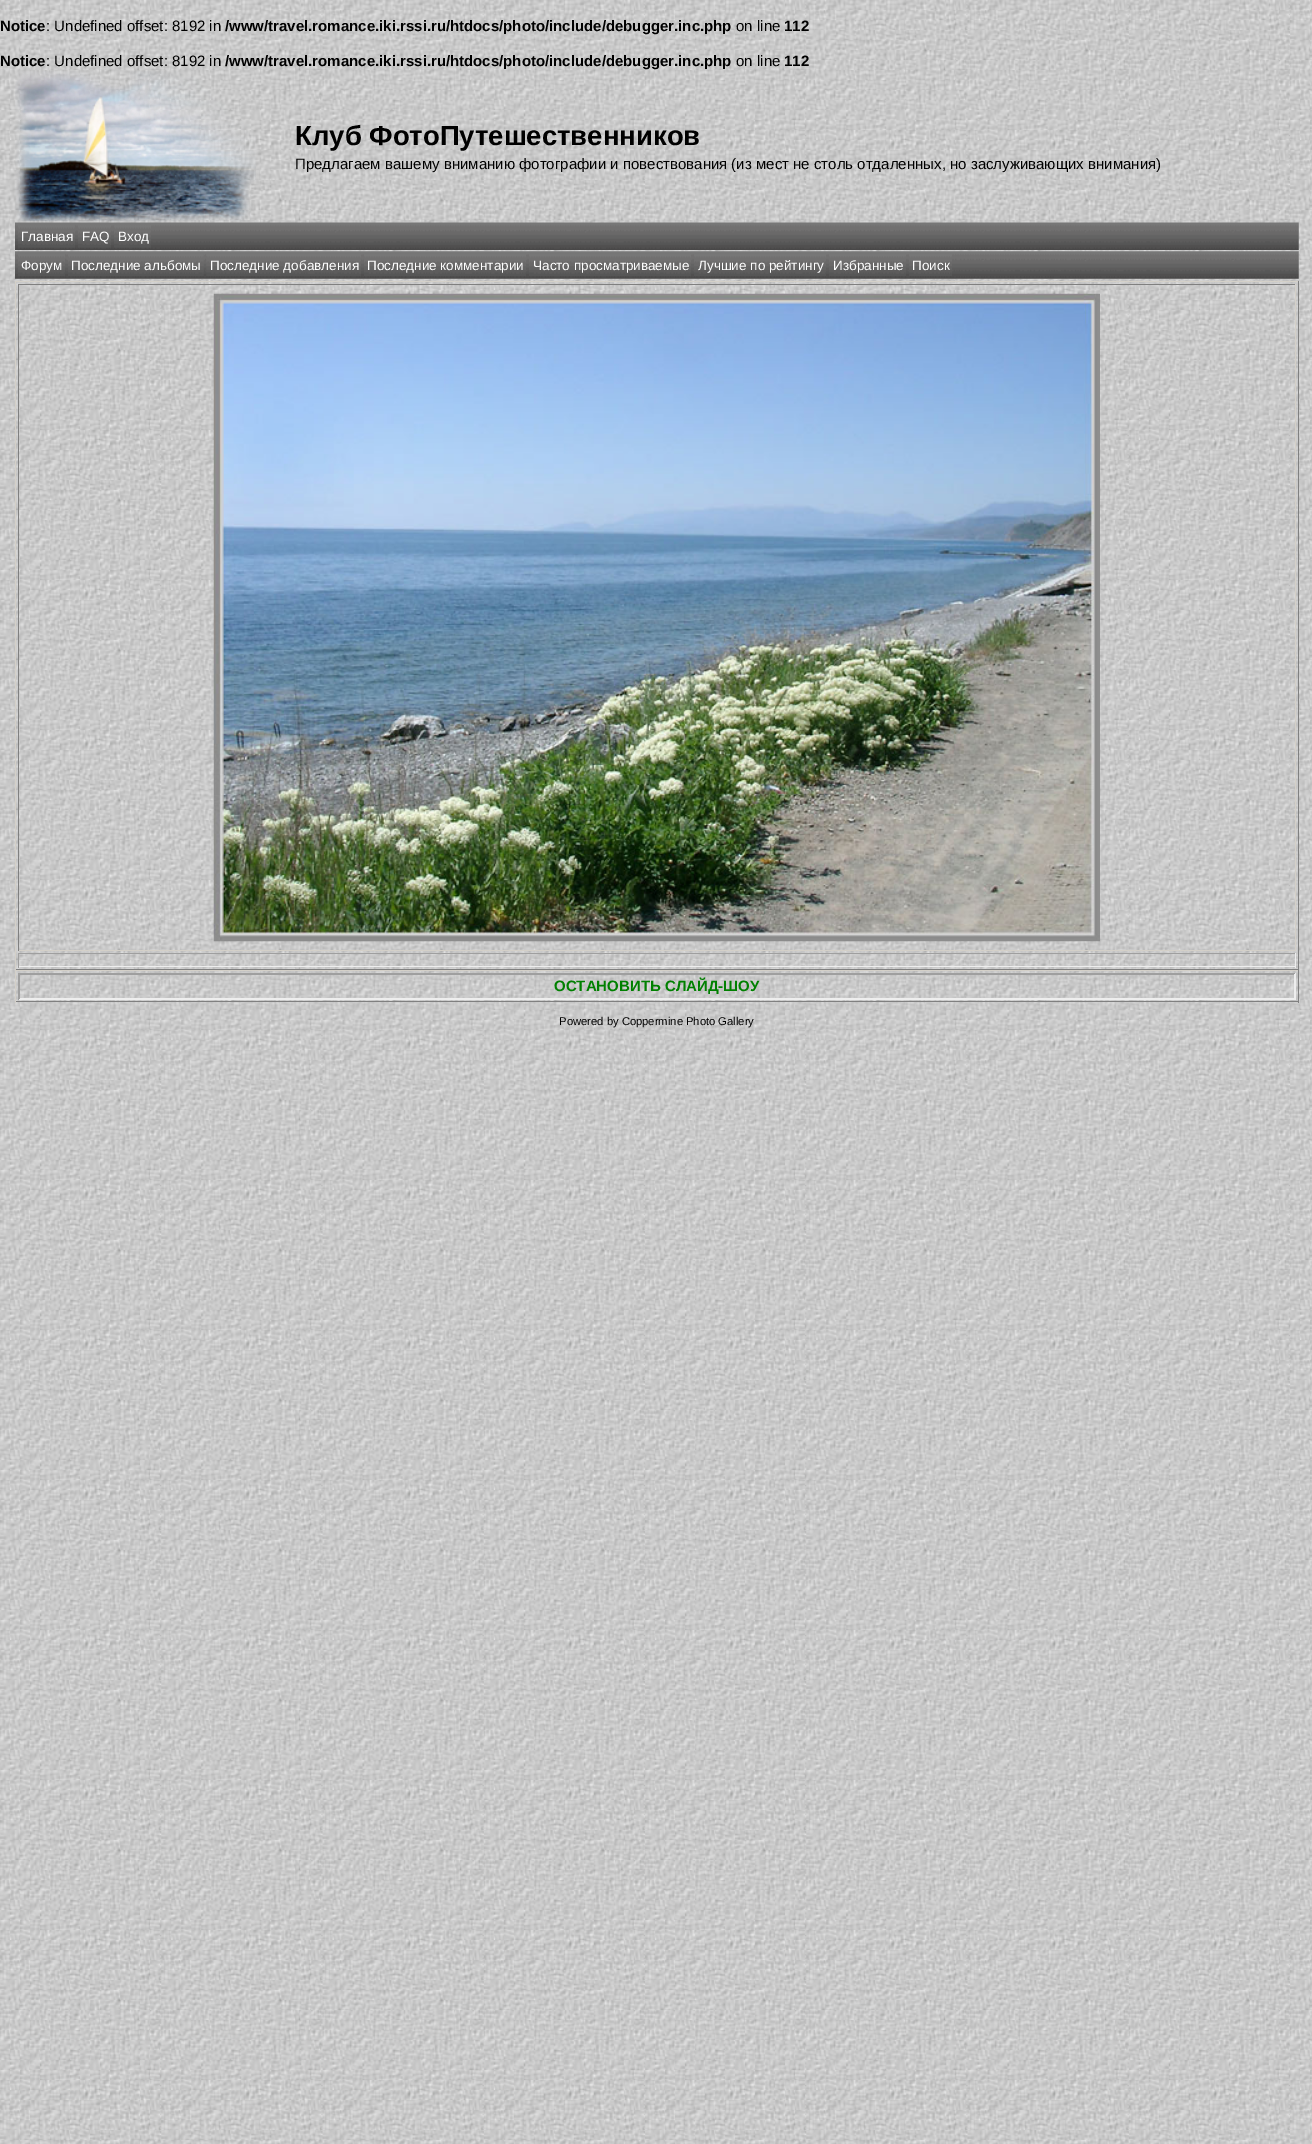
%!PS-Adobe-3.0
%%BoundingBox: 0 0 1312 2144
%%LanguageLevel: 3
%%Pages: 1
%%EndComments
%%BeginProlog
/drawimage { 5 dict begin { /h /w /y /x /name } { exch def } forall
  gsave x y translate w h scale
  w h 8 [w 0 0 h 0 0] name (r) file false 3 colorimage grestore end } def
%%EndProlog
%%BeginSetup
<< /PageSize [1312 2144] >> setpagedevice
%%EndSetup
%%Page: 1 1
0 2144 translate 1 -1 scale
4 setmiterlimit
1 setgray
0 0 1312 2144 rectfill
(images/1.raw) 0 0 1312 2144 drawimage
(images/2.raw) 15 71 241 151 drawimage
(images/3.raw) 15 222 1284 28 drawimage
(images/4.raw) 18 225 57 23 drawimage
(images/5.raw) 78 225 33 23 drawimage
(images/6.raw) 114 225 37 23 drawimage
(images/7.raw) 15 251 1284 28 drawimage
(images/8.raw) 18 254 47 22 drawimage
(images/9.raw) 68 254 136 22 drawimage
(images/10.raw) 206 254 155 22 drawimage
(images/11.raw) 364 254 162 22 drawimage
(images/12.raw) 529 254 162 22 drawimage
(images/13.raw) 694 254 132 22 drawimage
(images/14.raw) 829 254 77 22 drawimage
(images/15.raw) 909 254 43 22 drawimage
0.831 0.816 0.784 setrgbcolor
15 281 1284 1 rectfill
0.502 setgray
1298 281 1 689 rectfill
15 969 1284 1 rectfill
0.831 0.816 0.784 setrgbcolor
15 281 1 689 rectfill
0.502 setgray
18 284 1278 1 rectfill
0.831 0.816 0.784 setrgbcolor
1295 284 1 667 rectfill
18 950 1278 1 rectfill
0.502 setgray
18 284 1 667 rectfill
(images/16.raw) 213 293 887 649 drawimage
0.624 setgray
18 953 1278 1 rectfill
0.933 setgray
1295 953 1 15 rectfill
18 966 1278 1 rectfill
0.624 setgray
18 953 1 15 rectfill
0.831 0.816 0.784 setrgbcolor
15 970 1284 1 rectfill
0.502 setgray
1298 970 1 33 rectfill
15 1001 1284 1 rectfill
0.831 0.816 0.784 setrgbcolor
15 970 1 33 rectfill
0.624 setgray
18 973 1278 1 rectfill
0.933 setgray
1295 973 1 27 rectfill
18 999 1278 1 rectfill
0.624 setgray
18 973 1 27 rectfill
19 974 1276 1 rectfill
0.933 setgray
1294 974 1 25 rectfill
19 998 1276 1 rectfill
0.624 setgray
19 974 1 25 rectfill
/LiberationSans-Bold [15 0 0 -15 0 0] selectfont
0 setgray
0 31 moveto (Notice) show
/LiberationSans-Regular [15 0 0 -15 0 0] selectfont
46 31 moveto (: Undefined offset: 8192 in) show
/LiberationSans-Bold [15 0 0 -15 0 0] selectfont
225 31 moveto (/www/travel.romance.iki.rssi.ru/htdocs/photo/include/debugger.inc.php) show
/LiberationSans-Regular [15 0 0 -15 0 0] selectfont
736 31 moveto (on line) show
/LiberationSans-Bold [15 0 0 -15 0 0] selectfont
784 31 moveto (112) show
0 66 moveto (Notice) show
/LiberationSans-Regular [15 0 0 -15 0 0] selectfont
46 66 moveto (: Undefined offset: 8192 in) show
/LiberationSans-Bold [15 0 0 -15 0 0] selectfont
225 66 moveto (/www/travel.romance.iki.rssi.ru/htdocs/photo/include/debugger.inc.php) show
/LiberationSans-Regular [15 0 0 -15 0 0] selectfont
736 66 moveto (on line) show
/LiberationSans-Bold [15 0 0 -15 0 0] selectfont
784 66 moveto (112) show
/LiberationSans-Bold [27.5 0 0 -27.5 0 0] selectfont
295 145 moveto (Клуб ФотоПутешественников) show
/LiberationSans-Regular [15 0 0 -15 0 0] selectfont
295 169 moveto (Предлагаем вашему вниманию фотографии и повествования \(из мест не столь отдаленных, но заслуживающих внимания\)) show
/LiberationSans-Regular [13.5 0 0 -13.5 0 0] selectfont
1 setgray
21 241 moveto (Главная) show
82 241 moveto (FAQ) show
118 241 moveto (Вход) show
21 270 moveto (Форум) show
71 270 moveto (Последние альбомы) show
210 270 moveto (Последние добавления) show
367 270 moveto (Последние комментарии) show
533 270 moveto (Часто просматриваемые) show
698 270 moveto (Лучшие по рейтингу) show
833 270 moveto (Избранные) show
912 270 moveto (Поиск) show
/LiberationSans-Bold [15 0 0 -15 0 0] selectfont
0 0.502 0 setrgbcolor
554 991 moveto (ОСТАНОВИТЬ СЛАЙД-ШОУ) show
/LiberationSans-Regular [11.25 0 0 -11.25 0 0] selectfont
0 setgray
559 1025 moveto (Powered by Coppermine Photo Gallery) show
showpage
%%EOF
